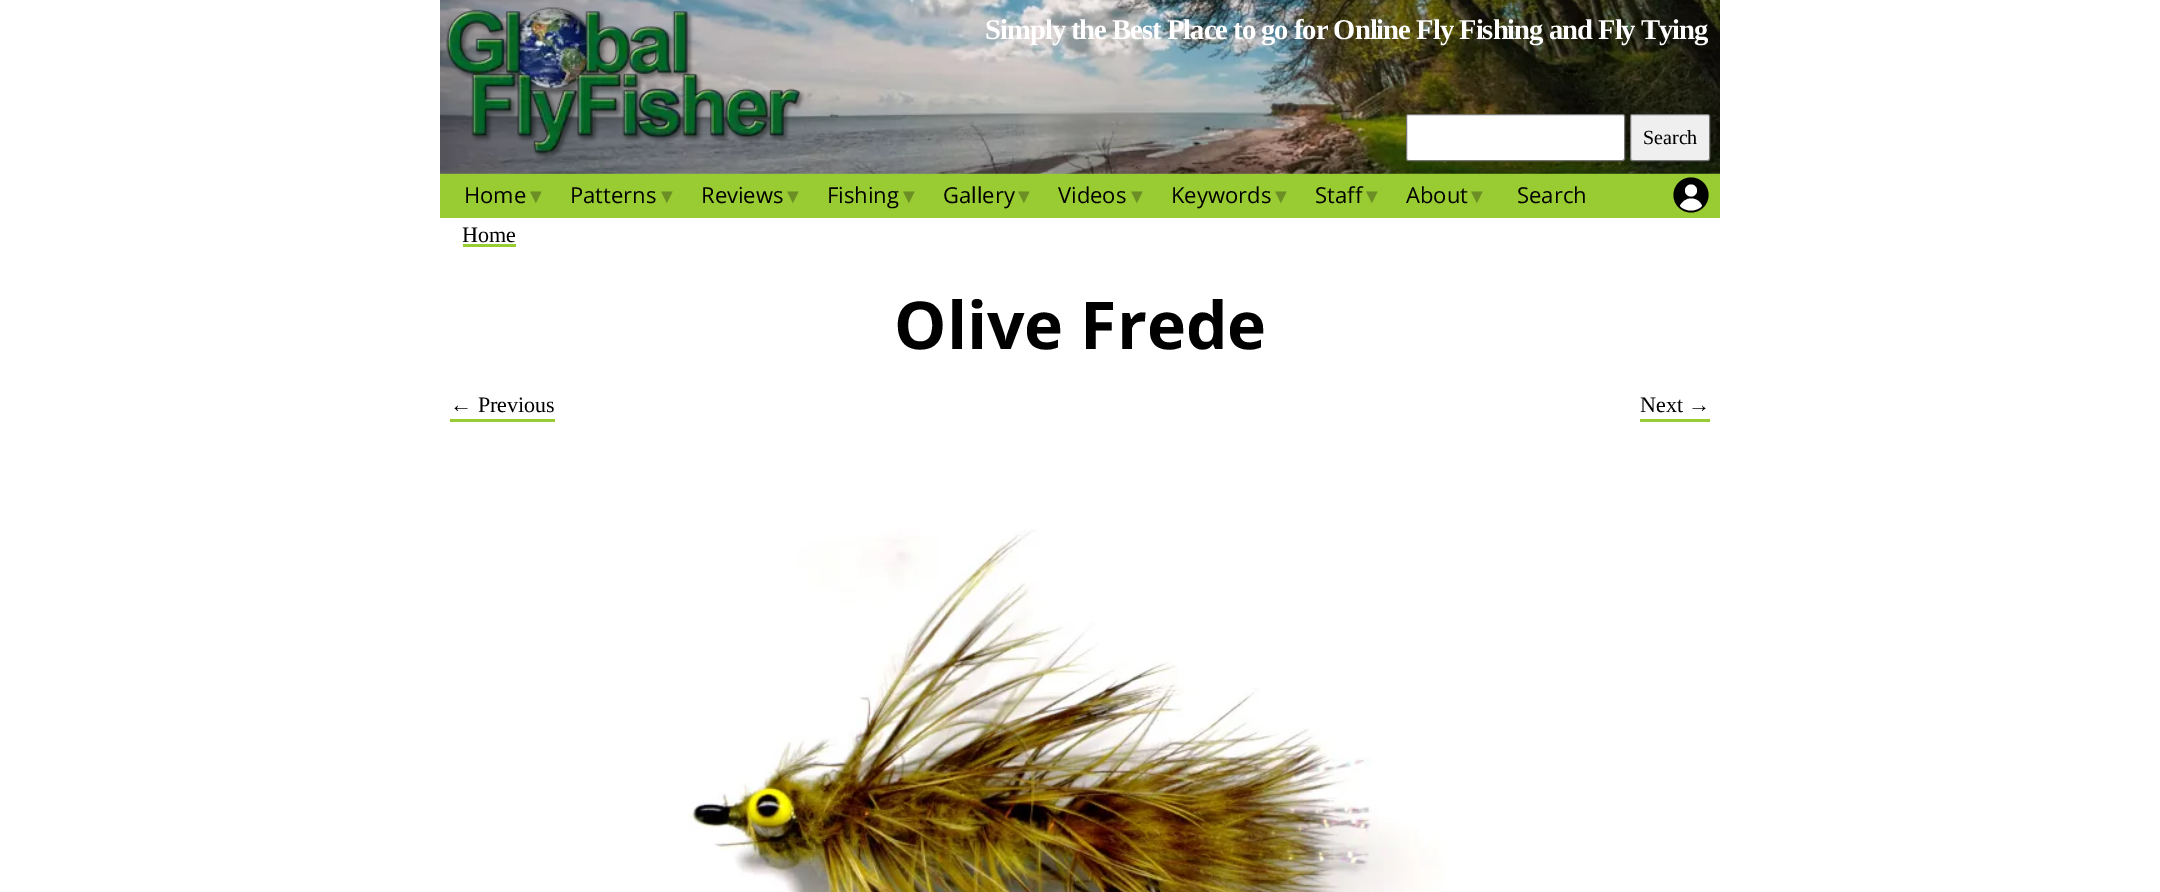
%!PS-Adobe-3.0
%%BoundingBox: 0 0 2160 892
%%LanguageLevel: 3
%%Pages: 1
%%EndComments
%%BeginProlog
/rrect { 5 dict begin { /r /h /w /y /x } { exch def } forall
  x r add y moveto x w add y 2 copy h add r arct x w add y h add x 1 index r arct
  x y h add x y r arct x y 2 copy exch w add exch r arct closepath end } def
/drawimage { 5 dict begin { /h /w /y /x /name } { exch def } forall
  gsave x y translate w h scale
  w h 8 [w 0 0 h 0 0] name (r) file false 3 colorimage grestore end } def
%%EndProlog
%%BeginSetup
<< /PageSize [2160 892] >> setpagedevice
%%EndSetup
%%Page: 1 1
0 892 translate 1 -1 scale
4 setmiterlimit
1 setgray
0 0 2160 892 rectfill
(images/1.raw) 440 0 1280 174 drawimage
(images/2.raw) 446 7 359 152 drawimage
1406.5 114.5 218 46 2 rrect gsave fill grestore
0.463 setgray
stroke
0.937 setgray
1630.5 114.5 79 46 2 rrect gsave fill grestore
0.463 setgray
stroke
0.6 0.8 0.2 setrgbcolor
440 174 1280 44 rectfill
0 setgray
newpath 1691 195 17.5 0 360 arc closepath fill
1 setgray
newpath 1691 190.5 6 0 360 arc closepath fill
newpath 1691 198.5 moveto 1696 198.5 1700.5 201.5 1702 206 curveto 1696 212 1686 212 1680 206 curveto 1682 201.5 1686 198.5 1691 198.5 curveto closepath fill
0.6 0.8 0.2 setrgbcolor
463 244 53 3 rectfill
450 419 105 3 rectfill
1640 419 70 3 rectfill
(images/3.raw) 688 529 756 363 drawimage
/LiberationSerif-Bold [28.6 0 0 -28.6 0 0] selectfont
1 setgray
985 39 moveto -1 0 (Simply the Best Place to go for Online Fly Fishing and Fly Tying) ashow
/LiberationSerif-Regular [20 0 0 -20 0 0] selectfont
0 setgray
1643 144 moveto (Search) show
/OpenSans-Regular [22 0 0 -22 0 0] selectfont
464 203 moveto (Home) show
/LiberationSans-Regular [20 0 0 -20 0 0] selectfont
0.42 0.561 0.141 setrgbcolor
526 203 moveto (▼) show
/OpenSans-Regular [22 0 0 -22 0 0] selectfont
0 setgray
570 203 moveto (Patterns) show
/LiberationSans-Regular [20 0 0 -20 0 0] selectfont
0.42 0.561 0.141 setrgbcolor
657 203 moveto (▼) show
/OpenSans-Regular [22 0 0 -22 0 0] selectfont
0 setgray
701 203 moveto (Reviews) show
/LiberationSans-Regular [20 0 0 -20 0 0] selectfont
0.42 0.561 0.141 setrgbcolor
783 203 moveto (▼) show
/OpenSans-Regular [22 0 0 -22 0 0] selectfont
0 setgray
827 203 moveto (Fishing) show
/LiberationSans-Regular [20 0 0 -20 0 0] selectfont
0.42 0.561 0.141 setrgbcolor
899 203 moveto (▼) show
/OpenSans-Regular [22 0 0 -22 0 0] selectfont
0 setgray
943 203 moveto (Gallery) show
/LiberationSans-Regular [20 0 0 -20 0 0] selectfont
0.42 0.561 0.141 setrgbcolor
1014 203 moveto (▼) show
/OpenSans-Regular [22 0 0 -22 0 0] selectfont
0 setgray
1058 203 moveto (Videos) show
/LiberationSans-Regular [20 0 0 -20 0 0] selectfont
0.42 0.561 0.141 setrgbcolor
1127 203 moveto (▼) show
/OpenSans-Regular [22 0 0 -22 0 0] selectfont
0 setgray
1171 203 moveto (Keywords) show
/LiberationSans-Regular [20 0 0 -20 0 0] selectfont
0.42 0.561 0.141 setrgbcolor
1271 203 moveto (▼) show
/OpenSans-Regular [22 0 0 -22 0 0] selectfont
0 setgray
1315 203 moveto (Staff) show
/LiberationSans-Regular [20 0 0 -20 0 0] selectfont
0.42 0.561 0.141 setrgbcolor
1362 203 moveto (▼) show
/OpenSans-Regular [22 0 0 -22 0 0] selectfont
0 setgray
1406 203 moveto (About) show
/LiberationSans-Regular [20 0 0 -20 0 0] selectfont
0.42 0.561 0.141 setrgbcolor
1467 203 moveto (▼) show
/OpenSans-Regular [22 0 0 -22 0 0] selectfont
0 setgray
1517 203 moveto (Search) show
/LiberationSerif-Regular [22 0 0 -22 0 0] selectfont
462 242 moveto (Home) show
/OpenSans-Bold [66 0 0 -66 0 0] selectfont
894 349 moveto (Olive Frede) show
/LiberationSerif-Regular [22 0 0 -22 0 0] selectfont
450 412 moveto (← Previous) show
1640 412 moveto (Next →) show
showpage
%%EOF
